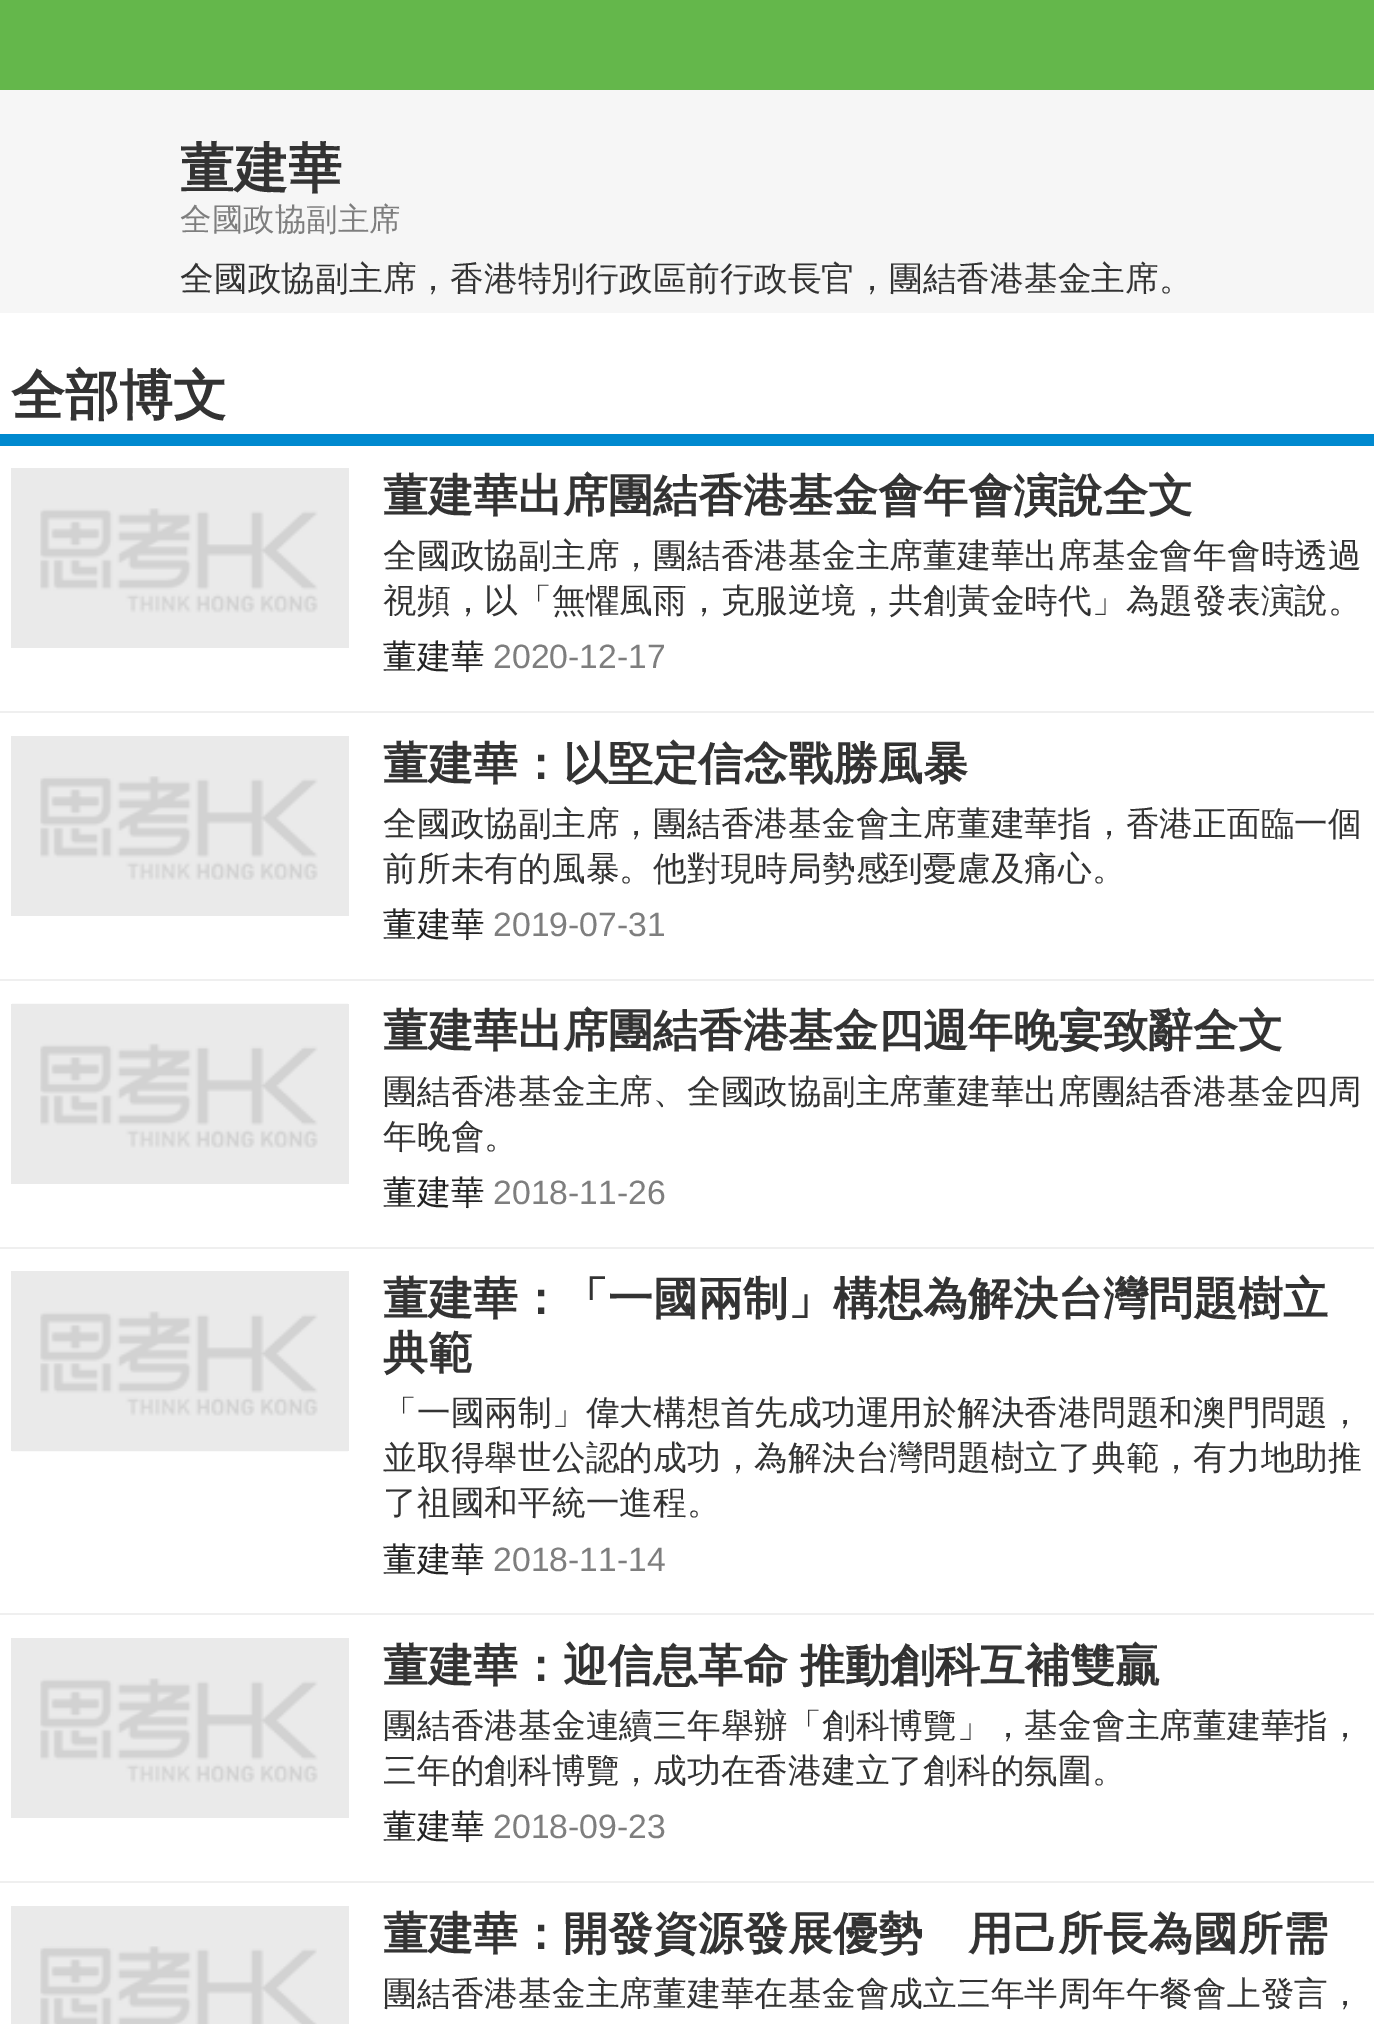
%!PS-Adobe-3.0
%%BoundingBox: 0 0 1374 2024
%%LanguageLevel: 3
%%Pages: 1
%%EndComments
%%BeginProlog
/drawimage { 5 dict begin { /h /w /y /x /name } { exch def } forall
  gsave x y translate w h scale
  w h 8 [w 0 0 h 0 0] name (r) file false 3 colorimage grestore end } def
%%EndProlog
%%BeginSetup
<< /PageSize [1374 2024] >> setpagedevice
%%EndSetup
%%Page: 1 1
0 2024 translate 1 -1 scale
4 setmiterlimit
1 setgray
0 0 1374 2024 rectfill
0.392 0.718 0.294 setrgbcolor
0 0 1374 90 rectfill
0.965 setgray
0 90 1374 223 rectfill
0 0.537 0.812 setrgbcolor
0 434 1374 12 rectfill
0.918 setgray
11 468 338 180 rectfill
(images/1.raw) 40 508 278 105 drawimage
0.937 setgray
0 711 1374 2 rectfill
0.918 setgray
11 736 338 180 rectfill
(images/2.raw) 40 776 278 104 drawimage
0.937 setgray
0 979 1374 2 rectfill
0.918 setgray
11 1004 338 180 rectfill
(images/3.raw) 12 1003 336 145 drawimage
0.937 setgray
0 1247 1374 2 rectfill
0.918 setgray
11 1271 338 180 rectfill
(images/4.raw) 12 1311 336 141 drawimage
0.937 setgray
0 1613 1374 2 rectfill
0.918 setgray
11 1638 338 180 rectfill
(images/5.raw) 40 1678 278 105 drawimage
0.937 setgray
0 1881 1374 2 rectfill
0.918 setgray
11 1906 338 118 rectfill
(images/6.raw) 40 1946 277 78 drawimage
/WenQuanYiZenHei-Bold [54 0 0 -54 0 0] selectfont
0.2 setgray
180 187 moveto (董建華) show
/WenQuanYiZenHei-Medium [31.5 0 0 -31.5 0 0] selectfont
0.494 setgray
180 230 moveto (全國政協副主席) show
/WenQuanYiZenHei-Medium [33.75 0 0 -33.75 0 0] selectfont
0.2 setgray
180 290 moveto (全國政協副主席，香港特別行政區前行政長官，團結香港基金主席。) show
/WenQuanYiZenHei-Bold [54 0 0 -54 0 0] selectfont
11 414 moveto (全部博文) show
/WenQuanYiZenHei-Bold [45 0 0 -45 0 0] selectfont
383 511 moveto (董建華出席團結香港基金會年會演說全文) show
/WenQuanYiZenHei-Medium [33.75 0 0 -33.75 0 0] selectfont
383 567 moveto (全國政協副主席，團結香港基金主席董建華出席基金會年會時透過) show
383 612 moveto (視頻，以「無懼風雨，克服逆境，共創黃金時代」為題發表演說。) show
0.133 setgray
383 668 moveto (董建華) show
/LiberationSans-Regular [33.75 0 0 -33.75 0 0] selectfont
0.494 setgray
493 668 moveto (2020-12-17) show
/WenQuanYiZenHei-Bold [45 0 0 -45 0 0] selectfont
0.2 setgray
383 779 moveto (董建華：以堅定信念戰勝風暴) show
/WenQuanYiZenHei-Medium [33.75 0 0 -33.75 0 0] selectfont
383 835 moveto (全國政協副主席，團結香港基金會主席董建華指，香港正面臨一個) show
383 880 moveto (前所未有的風暴。他對現時局勢感到憂慮及痛心。) show
0.133 setgray
383 936 moveto (董建華) show
/LiberationSans-Regular [33.75 0 0 -33.75 0 0] selectfont
0.494 setgray
493 936 moveto (2019-07-31) show
/WenQuanYiZenHei-Bold [45 0 0 -45 0 0] selectfont
0.2 setgray
383 1046 moveto (董建華出席團結香港基金四週年晚宴致辭全文) show
/WenQuanYiZenHei-Medium [33.75 0 0 -33.75 0 0] selectfont
383 1103 moveto (團結香港基金主席、全國政協副主席董建華出席團結香港基金四周) show
383 1148 moveto (年晚會。) show
0.133 setgray
383 1204 moveto (董建華) show
/LiberationSans-Regular [33.75 0 0 -33.75 0 0] selectfont
0.494 setgray
493 1204 moveto (2018-11-26) show
/WenQuanYiZenHei-Bold [45 0 0 -45 0 0] selectfont
0.2 setgray
383 1314 moveto (董建華：「一國兩制」構想為解決台灣問題樹立) show
383 1368 moveto (典範) show
/WenQuanYiZenHei-Medium [33.75 0 0 -33.75 0 0] selectfont
383 1424 moveto (「一國兩制」偉大構想首先成功運用於解決香港問題和澳門問題，) show
383 1469 moveto (並取得舉世公認的成功，為解決台灣問題樹立了典範，有力地助推) show
383 1514 moveto (了祖國和平統一進程。) show
0.133 setgray
383 1571 moveto (董建華) show
/LiberationSans-Regular [33.75 0 0 -33.75 0 0] selectfont
0.494 setgray
493 1571 moveto (2018-11-14) show
/WenQuanYiZenHei-Bold [45 0 0 -45 0 0] selectfont
0.2 setgray
383 1681 moveto -1 0 32 (董建華：迎信息革命 推動創科互補雙贏) widthshow
/WenQuanYiZenHei-Medium [33.75 0 0 -33.75 0 0] selectfont
383 1737 moveto (團結香港基金連續三年舉辦「創科博覽」，基金會主席董建華指，) show
383 1782 moveto (三年的創科博覽，成功在香港建立了創科的氛圍。) show
0.133 setgray
383 1838 moveto (董建華) show
/LiberationSans-Regular [33.75 0 0 -33.75 0 0] selectfont
0.494 setgray
493 1838 moveto (2018-09-23) show
/WenQuanYiZenHei-Bold [45 0 0 -45 0 0] selectfont
0.2 setgray
383 1949 moveto (董建華：開發資源發展優勢　用己所長為國所需) show
/WenQuanYiZenHei-Medium [33.75 0 0 -33.75 0 0] selectfont
383 2005 moveto (團結香港基金主席董建華在基金會成立三年半周年午餐會上發言，) show
showpage
%%EOF
